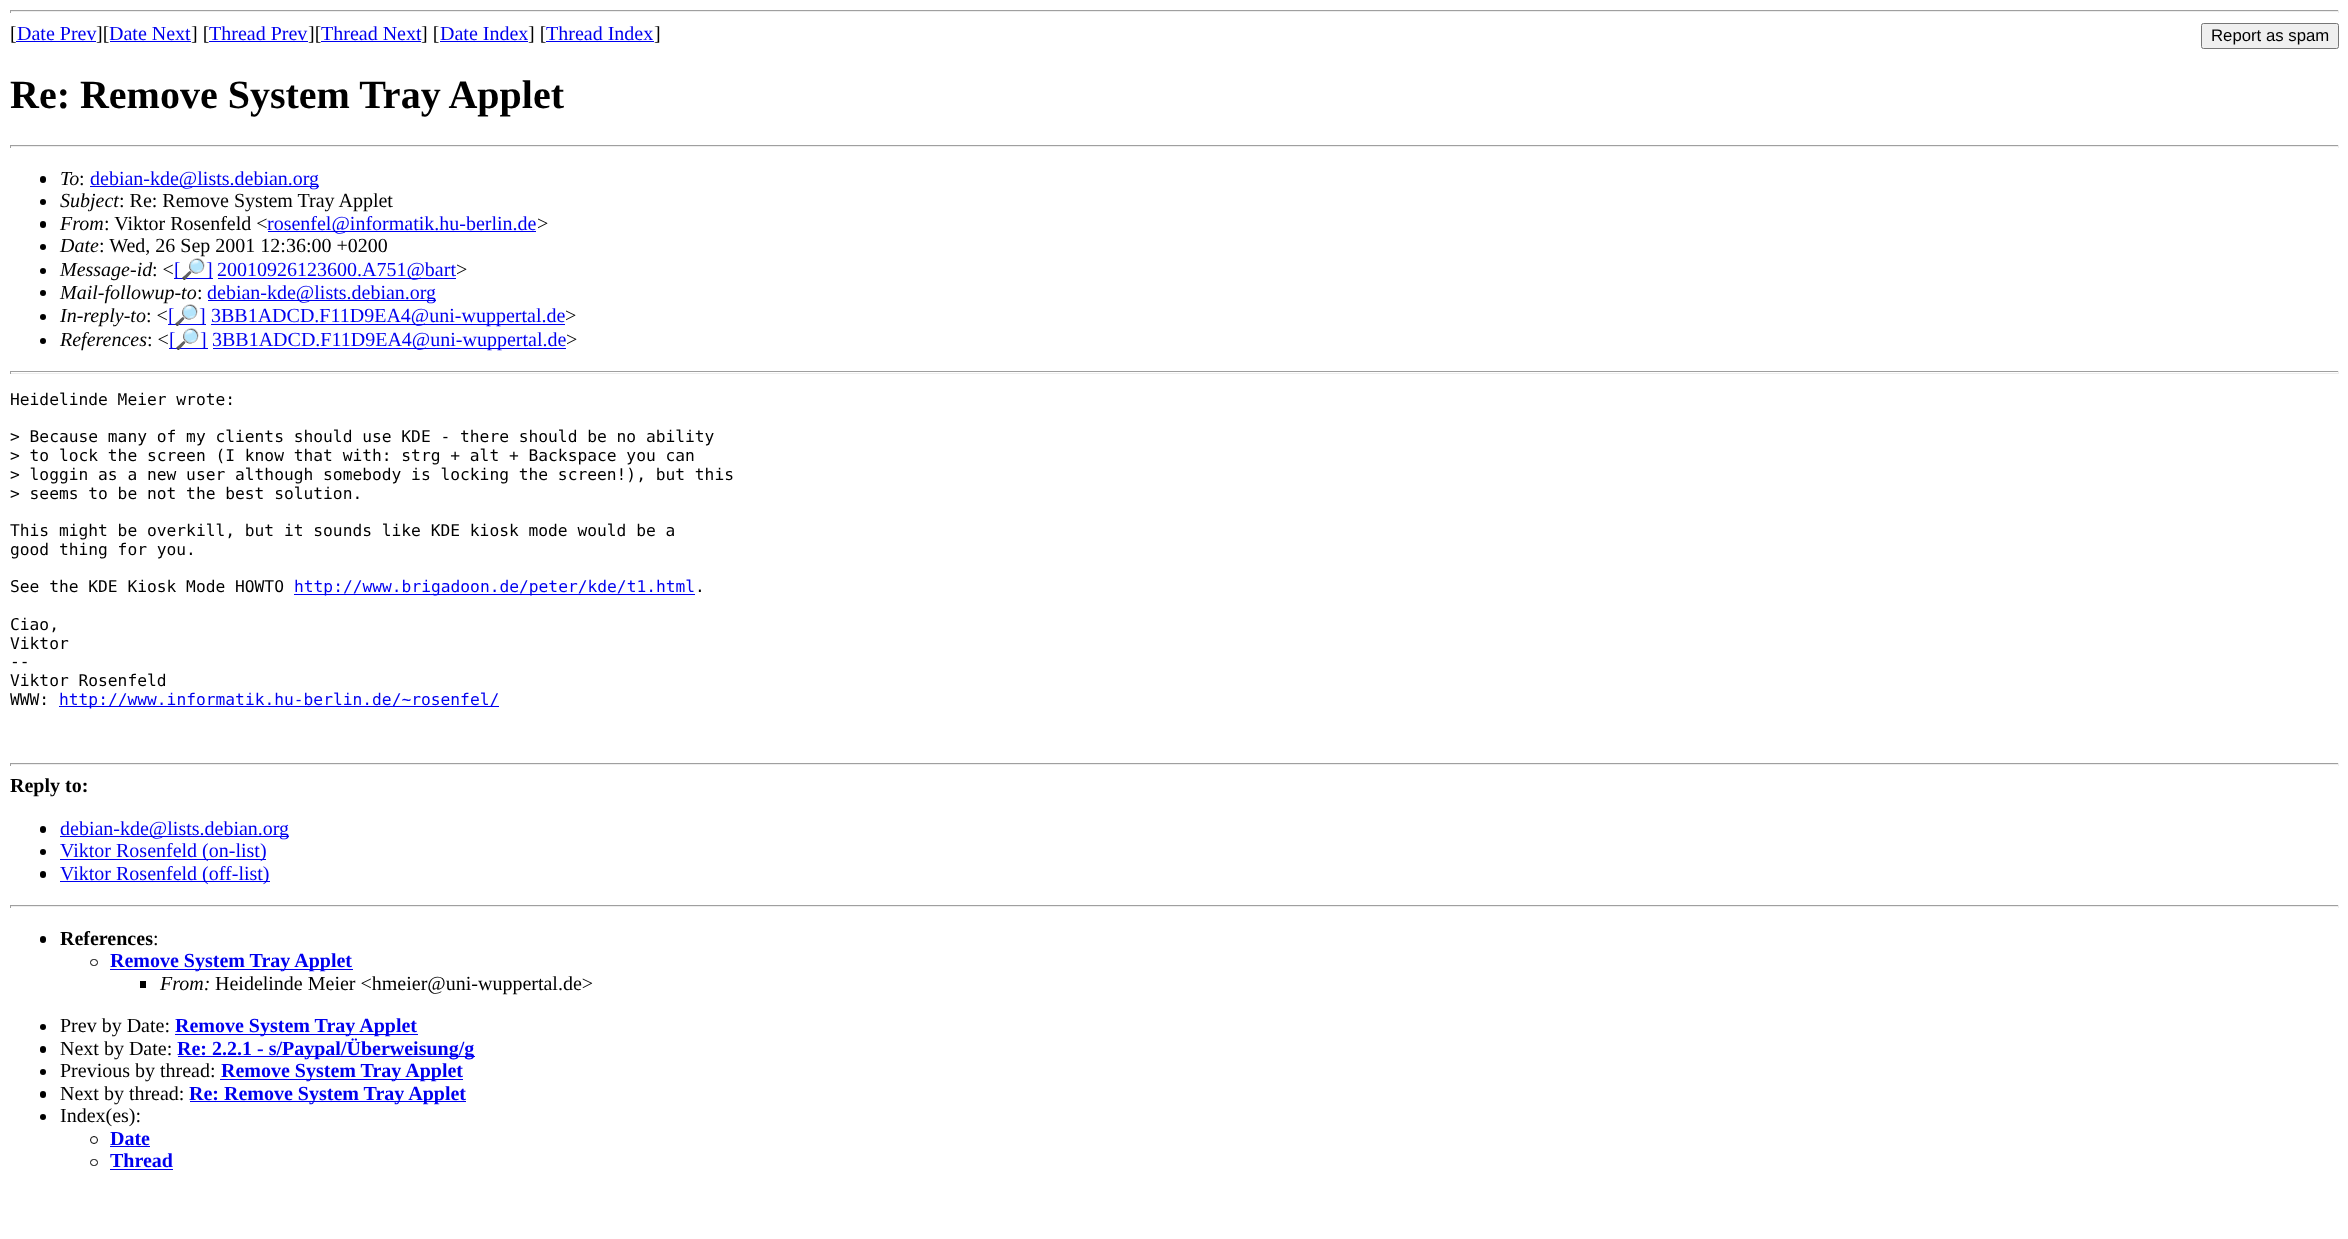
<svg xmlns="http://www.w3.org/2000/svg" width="2348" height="1239">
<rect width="100%" height="100%" fill="#fff"/>
<rect x="10" y="10" width="2329" height="1" fill="#9f9f9f"/>
<rect x="2338" y="10" width="1" height="3" fill="#eee"/>
<rect x="10" y="11" width="2329" height="1" fill="#eee"/>
<rect x="10" y="10" width="1" height="3" fill="#9f9f9f"/>
<text x="10" y="40" style="font-family:Liberation Serif;font-size:20px;fill:#000">[</text>
<text x="17" y="40" style="font-family:Liberation Serif;font-size:20px;fill:#00e">Date Prev</text>
<rect x="16" y="41" width="80" height="1" fill="#00e"/>
<text x="96" y="40" style="font-family:Liberation Serif;font-size:20px;fill:#000">][</text>
<text x="109" y="40" style="font-family:Liberation Serif;font-size:20px;fill:#00e">Date Next</text>
<rect x="110" y="41" width="81" height="1" fill="#00e"/>
<text x="191" y="40" style="font-family:Liberation Serif;font-size:20px;fill:#000">] [</text>
<text x="209" y="40" style="font-family:Liberation Serif;font-size:20px;fill:#00e">Thread Prev</text>
<rect x="209" y="41" width="99" height="1" fill="#00e"/>
<text x="308" y="40" style="font-family:Liberation Serif;font-size:20px;fill:#000">][</text>
<text x="321" y="40" style="font-family:Liberation Serif;font-size:20px;fill:#00e">Thread Next</text>
<rect x="321" y="41" width="100" height="1" fill="#00e"/>
<text x="421" y="40" style="font-family:Liberation Serif;font-size:20px;fill:#000">] [</text>
<text x="440" y="40" style="font-family:Liberation Serif;font-size:20px;fill:#00e">Date Index</text>
<rect x="440" y="41" width="88" height="1" fill="#00e"/>
<text x="528" y="40" style="font-family:Liberation Serif;font-size:20px;fill:#000">] [</text>
<text x="546" y="40" style="font-family:Liberation Serif;font-size:20px;fill:#00e">Thread Index</text>
<rect x="546" y="41" width="108" height="1" fill="#00e"/>
<text x="654" y="40" style="font-family:Liberation Serif;font-size:20px;fill:#000">]</text>
<rect x="2201.5" y="23.5" width="137" height="25" rx="2" fill="#efefef" stroke="#767676"/>
<text x="2211" y="41" style="font-family:Liberation Sans;font-size:16.75px;fill:#000">Report as spam</text>
<text x="10" y="108" style="font-family:Liberation Serif;font-size:40px;font-weight:bold;fill:#000">Re: Remove System Tray Applet</text>
<rect x="10" y="145" width="2329" height="1" fill="#9f9f9f"/>
<rect x="2338" y="145" width="1" height="3" fill="#eee"/>
<rect x="10" y="146" width="2329" height="1" fill="#eee"/>
<rect x="10" y="145" width="1" height="3" fill="#9f9f9f"/>
<rect x="40" y="176" width="6" height="7" rx="3" fill="#000"/>
<text x="60" y="185" style="font-family:Liberation Serif;font-size:20px;font-style:italic;fill:#000">To</text>
<text x="79" y="185" style="font-family:Liberation Serif;font-size:20px;fill:#000">:</text>
<rect x="90" y="186" width="229" height="1" fill="#00e"/>
<text x="90" y="185" style="font-family:Liberation Serif;font-size:20px;fill:#00e">debian-kde@lists.debian.org</text>
<circle cx="43" cy="202" r="3" fill="#000"/>
<text x="60" y="207" style="font-family:Liberation Serif;font-size:20px;font-style:italic;fill:#000">Subject</text>
<text x="119" y="207" style="font-family:Liberation Serif;font-size:20px;fill:#000">: Re: Remove System Tray Applet</text>
<rect x="40" y="221" width="6" height="7" rx="3" fill="#000"/>
<text x="60" y="230" style="font-family:Liberation Serif;font-size:20px;font-style:italic;fill:#000">From</text>
<text x="104" y="230" style="font-family:Liberation Serif;font-size:20px;fill:#000">: Viktor Rosenfeld &lt;</text>
<rect x="268" y="231" width="268" height="1" fill="#00e"/>
<text x="267" y="230" style="font-family:Liberation Serif;font-size:20px;fill:#00e">rosenfel@informatik.hu-berlin.de</text>
<text x="537" y="230" style="font-family:Liberation Serif;font-size:20px;fill:#000">&gt;</text>
<circle cx="43" cy="247" r="3" fill="#000"/>
<text x="60" y="252" style="font-family:Liberation Serif;font-size:20px;font-style:italic;fill:#000">Date</text>
<text x="99" y="252" style="font-family:Liberation Serif;font-size:20px;fill:#000">: Wed, 26 Sep 2001 12:36:00 +0200</text>
<circle cx="43" cy="271" r="3" fill="#000"/>
<text x="60" y="276" style="font-family:Liberation Serif;font-size:20px;font-style:italic;fill:#000">Message-id</text>
<text x="152" y="276" style="font-family:Liberation Serif;font-size:20px;fill:#000">: &lt;</text>
<rect x="174" y="278" width="39" height="1" fill="#00e"/>
<text x="174" y="276" style="font-family:Liberation Serif;font-size:20px;fill:#00e">[</text>
<text x="181" y="276" style="font-family:Noto Color Emoji;font-size:20px;fill:#00e">🔎</text>
<text x="206" y="276" style="font-family:Liberation Serif;font-size:20px;fill:#00e">]</text>
<rect x="218" y="278" width="238" height="1" fill="#00e"/>
<text x="217" y="276" style="font-family:Liberation Serif;font-size:20px;fill:#00e">20010926123600.A751@bart</text>
<text x="456" y="276" style="font-family:Liberation Serif;font-size:20px;fill:#000">&gt;</text>
<circle cx="43" cy="293" r="3" fill="#000"/>
<text x="60" y="299" style="font-family:Liberation Serif;font-size:20px;font-style:italic;fill:#000">Mail-followup-to</text>
<text x="197" y="299" style="font-family:Liberation Serif;font-size:20px;fill:#000">:</text>
<rect x="208" y="300" width="228" height="1" fill="#00e"/>
<text x="207" y="299" style="font-family:Liberation Serif;font-size:20px;fill:#00e">debian-kde@lists.debian.org</text>
<circle cx="43" cy="317" r="3" fill="#000"/>
<text x="60" y="322" style="font-family:Liberation Serif;font-size:20px;font-style:italic;fill:#000">In-reply-to</text>
<text x="146" y="322" style="font-family:Liberation Serif;font-size:20px;fill:#000">: &lt;</text>
<rect x="168" y="324" width="38" height="1" fill="#00e"/>
<text x="168" y="322" style="font-family:Liberation Serif;font-size:20px;fill:#00e">[</text>
<text x="174" y="322" style="font-family:Noto Color Emoji;font-size:20px;fill:#00e">🔎</text>
<text x="199" y="322" style="font-family:Liberation Serif;font-size:20px;fill:#00e">]</text>
<rect x="211" y="324" width="354" height="1" fill="#00e"/>
<text x="211" y="322" style="font-family:Liberation Serif;font-size:20px;fill:#00e">3BB1ADCD.F11D9EA4@uni-wuppertal.de</text>
<text x="565" y="322" style="font-family:Liberation Serif;font-size:20px;fill:#000">&gt;</text>
<circle cx="43" cy="341" r="3" fill="#000"/>
<text x="60" y="346" style="font-family:Liberation Serif;font-size:20px;font-style:italic;fill:#000">References</text>
<text x="147" y="346" style="font-family:Liberation Serif;font-size:20px;fill:#000">: &lt;</text>
<rect x="169" y="348" width="39" height="1" fill="#00e"/>
<text x="169" y="346" style="font-family:Liberation Serif;font-size:20px;fill:#00e">[</text>
<text x="175" y="346" style="font-family:Noto Color Emoji;font-size:20px;fill:#00e">🔎</text>
<text x="200" y="346" style="font-family:Liberation Serif;font-size:20px;fill:#00e">]</text>
<rect x="213" y="348" width="353" height="1" fill="#00e"/>
<text x="212" y="346" style="font-family:Liberation Serif;font-size:20px;fill:#00e">3BB1ADCD.F11D9EA4@uni-wuppertal.de</text>
<text x="566" y="346" style="font-family:Liberation Serif;font-size:20px;fill:#000">&gt;</text>
<rect x="10" y="371" width="2329" height="1" fill="#9f9f9f"/>
<rect x="2338" y="371" width="1" height="3" fill="#eee"/>
<rect x="10" y="373" width="2329" height="1" fill="#eee"/>
<rect x="10" y="371" width="1" height="3" fill="#9f9f9f"/>
<text x="10" y="405" style="font-family:DejaVu Sans Mono;font-size:16.25px;fill:#000">Heidelinde Meier wrote:</text>
<text x="10" y="442" style="font-family:DejaVu Sans Mono;font-size:16.25px;fill:#000">&gt; Because many of my clients should use KDE - there should be no ability</text>
<text x="10" y="461" style="font-family:DejaVu Sans Mono;font-size:16.25px;fill:#000">&gt; to lock the screen (I know that with: strg + alt + Backspace you can</text>
<text x="10" y="480" style="font-family:DejaVu Sans Mono;font-size:16.25px;fill:#000">&gt; loggin as a new user although somebody is locking the screen!), but this</text>
<text x="10" y="499" style="font-family:DejaVu Sans Mono;font-size:16.25px;fill:#000">&gt; seems to be not the best solution.</text>
<text x="10" y="536" style="font-family:DejaVu Sans Mono;font-size:16.25px;fill:#000">This might be overkill, but it sounds like KDE kiosk mode would be a</text>
<text x="10" y="555" style="font-family:DejaVu Sans Mono;font-size:16.25px;fill:#000">good thing for you.</text>
<text x="10" y="592" style="font-family:DejaVu Sans Mono;font-size:16.25px;fill:#000">See the KDE Kiosk Mode HOWTO</text>
<rect x="294" y="594" width="401" height="1" fill="#00e"/>
<text x="294" y="592" style="font-family:DejaVu Sans Mono;font-size:16.25px;fill:#00e">http://www.brigadoon.de/peter/kde/t1.html</text>
<text x="695" y="592" style="font-family:DejaVu Sans Mono;font-size:16.25px;fill:#000">.</text>
<text x="10" y="630" style="font-family:DejaVu Sans Mono;font-size:16.25px;fill:#000">Ciao,</text>
<text x="10" y="649" style="font-family:DejaVu Sans Mono;font-size:16.25px;fill:#000">Viktor</text>
<text x="10" y="667" style="font-family:DejaVu Sans Mono;font-size:16.25px;fill:#000">--</text>
<text x="10" y="686" style="font-family:DejaVu Sans Mono;font-size:16.25px;fill:#000">Viktor Rosenfeld</text>
<text x="10" y="705" style="font-family:DejaVu Sans Mono;font-size:16.25px;fill:#000">WWW:</text>
<rect x="59" y="706" width="440" height="1" fill="#00e"/>
<text x="59" y="705" style="font-family:DejaVu Sans Mono;font-size:16.25px;fill:#00e">http://www.informatik.hu-berlin.de/~rosenfel/</text>
<rect x="10" y="763" width="2329" height="1" fill="#9f9f9f"/>
<rect x="2338" y="763" width="1" height="3" fill="#eee"/>
<rect x="10" y="764" width="2329" height="1" fill="#eee"/>
<rect x="10" y="763" width="1" height="3" fill="#9f9f9f"/>
<text x="10" y="792" style="font-family:Liberation Serif;font-size:20px;font-weight:bold;fill:#000">Reply to:</text>
<rect x="40" y="826" width="6" height="7" rx="3" fill="#000"/>
<rect x="60" y="836" width="229" height="1" fill="#00e"/>
<text x="60" y="835" style="font-family:Liberation Serif;font-size:20px;fill:#00e">debian-kde@lists.debian.org</text>
<circle cx="43" cy="852" r="3" fill="#000"/>
<rect x="60" y="859" width="206" height="1" fill="#00e"/>
<text x="60" y="857" style="font-family:Liberation Serif;font-size:20px;fill:#00e">Viktor Rosenfeld (on-list)</text>
<rect x="40" y="871" width="6" height="7" rx="3" fill="#000"/>
<rect x="60" y="881" width="210" height="1" fill="#00e"/>
<text x="60" y="880" style="font-family:Liberation Serif;font-size:20px;fill:#00e">Viktor Rosenfeld (off-list)</text>
<rect x="10" y="905" width="2329" height="1" fill="#9f9f9f"/>
<rect x="2338" y="905" width="1" height="3" fill="#eee"/>
<rect x="10" y="906" width="2329" height="1" fill="#eee"/>
<rect x="10" y="905" width="1" height="3" fill="#9f9f9f"/>
<rect x="40" y="936" width="6" height="7" rx="3" fill="#000"/>
<text x="60" y="945" style="font-family:Liberation Serif;font-size:20px;font-weight:bold;fill:#000">References</text>
<text x="153" y="945" style="font-family:Liberation Serif;font-size:20px;fill:#000">:</text>
<rect x="90.5" y="959.5" width="7" height="6" rx="3" fill="none" stroke="#000"/>
<rect x="110" y="969" width="243" height="1" fill="#00e"/>
<text x="110" y="967" style="font-family:Liberation Serif;font-size:20px;font-weight:bold;fill:#00e">Remove System Tray Applet</text>
<rect x="140" y="981" width="6" height="7" fill="#000"/>
<text x="160" y="990" style="font-family:Liberation Serif;font-size:20px;font-style:italic;fill:#000">From:</text>
<text x="215" y="990" style="font-family:Liberation Serif;font-size:20px;fill:#000">Heidelinde Meier &lt;hmeier@uni-wuppertal.de&gt;</text>
<circle cx="43" cy="1027" r="3" fill="#000"/>
<text x="60" y="1032" style="font-family:Liberation Serif;font-size:20px;fill:#000">Prev by Date:</text>
<rect x="175" y="1034" width="243" height="1" fill="#00e"/>
<text x="175" y="1032" style="font-family:Liberation Serif;font-size:20px;font-weight:bold;fill:#00e">Remove System Tray Applet</text>
<rect x="40" y="1046" width="6" height="7" rx="3" fill="#000"/>
<text x="60" y="1055" style="font-family:Liberation Serif;font-size:20px;fill:#000">Next by Date:</text>
<rect x="178" y="1056" width="297" height="1" fill="#00e"/>
<text x="177" y="1055" style="font-family:Liberation Serif;font-size:20px;font-weight:bold;fill:#00e">Re: 2.2.1 - s/Paypal/Überweisung/g</text>
<circle cx="43" cy="1072" r="3" fill="#000"/>
<text x="60" y="1077" style="font-family:Liberation Serif;font-size:20px;fill:#000">Previous by thread:</text>
<rect x="220" y="1079" width="243" height="1" fill="#00e"/>
<text x="221" y="1077" style="font-family:Liberation Serif;font-size:20px;font-weight:bold;fill:#00e">Remove System Tray Applet</text>
<rect x="40" y="1091" width="6" height="7" rx="3" fill="#000"/>
<text x="60" y="1100" style="font-family:Liberation Serif;font-size:20px;fill:#000">Next by thread:</text>
<rect x="190" y="1101" width="276" height="1" fill="#00e"/>
<text x="189" y="1100" style="font-family:Liberation Serif;font-size:20px;font-weight:bold;fill:#00e">Re: Remove System Tray Applet</text>
<circle cx="43" cy="1117" r="3" fill="#000"/>
<text x="60" y="1122" style="font-family:Liberation Serif;font-size:20px;fill:#000">Index(es):</text>
<circle cx="94" cy="1140" r="3.5" fill="none" stroke="#000"/>
<text x="110" y="1145" style="font-family:Liberation Serif;font-size:20px;font-weight:bold;fill:#00e">Date</text>
<rect x="110" y="1146" width="40" height="1" fill="#00e"/>
<rect x="90.5" y="1159.5" width="7" height="6" rx="3" fill="none" stroke="#000"/>
<text x="110" y="1167" style="font-family:Liberation Serif;font-size:20px;font-weight:bold;fill:#00e">Thread</text>
<rect x="110" y="1169" width="63" height="1" fill="#00e"/>
</svg>
